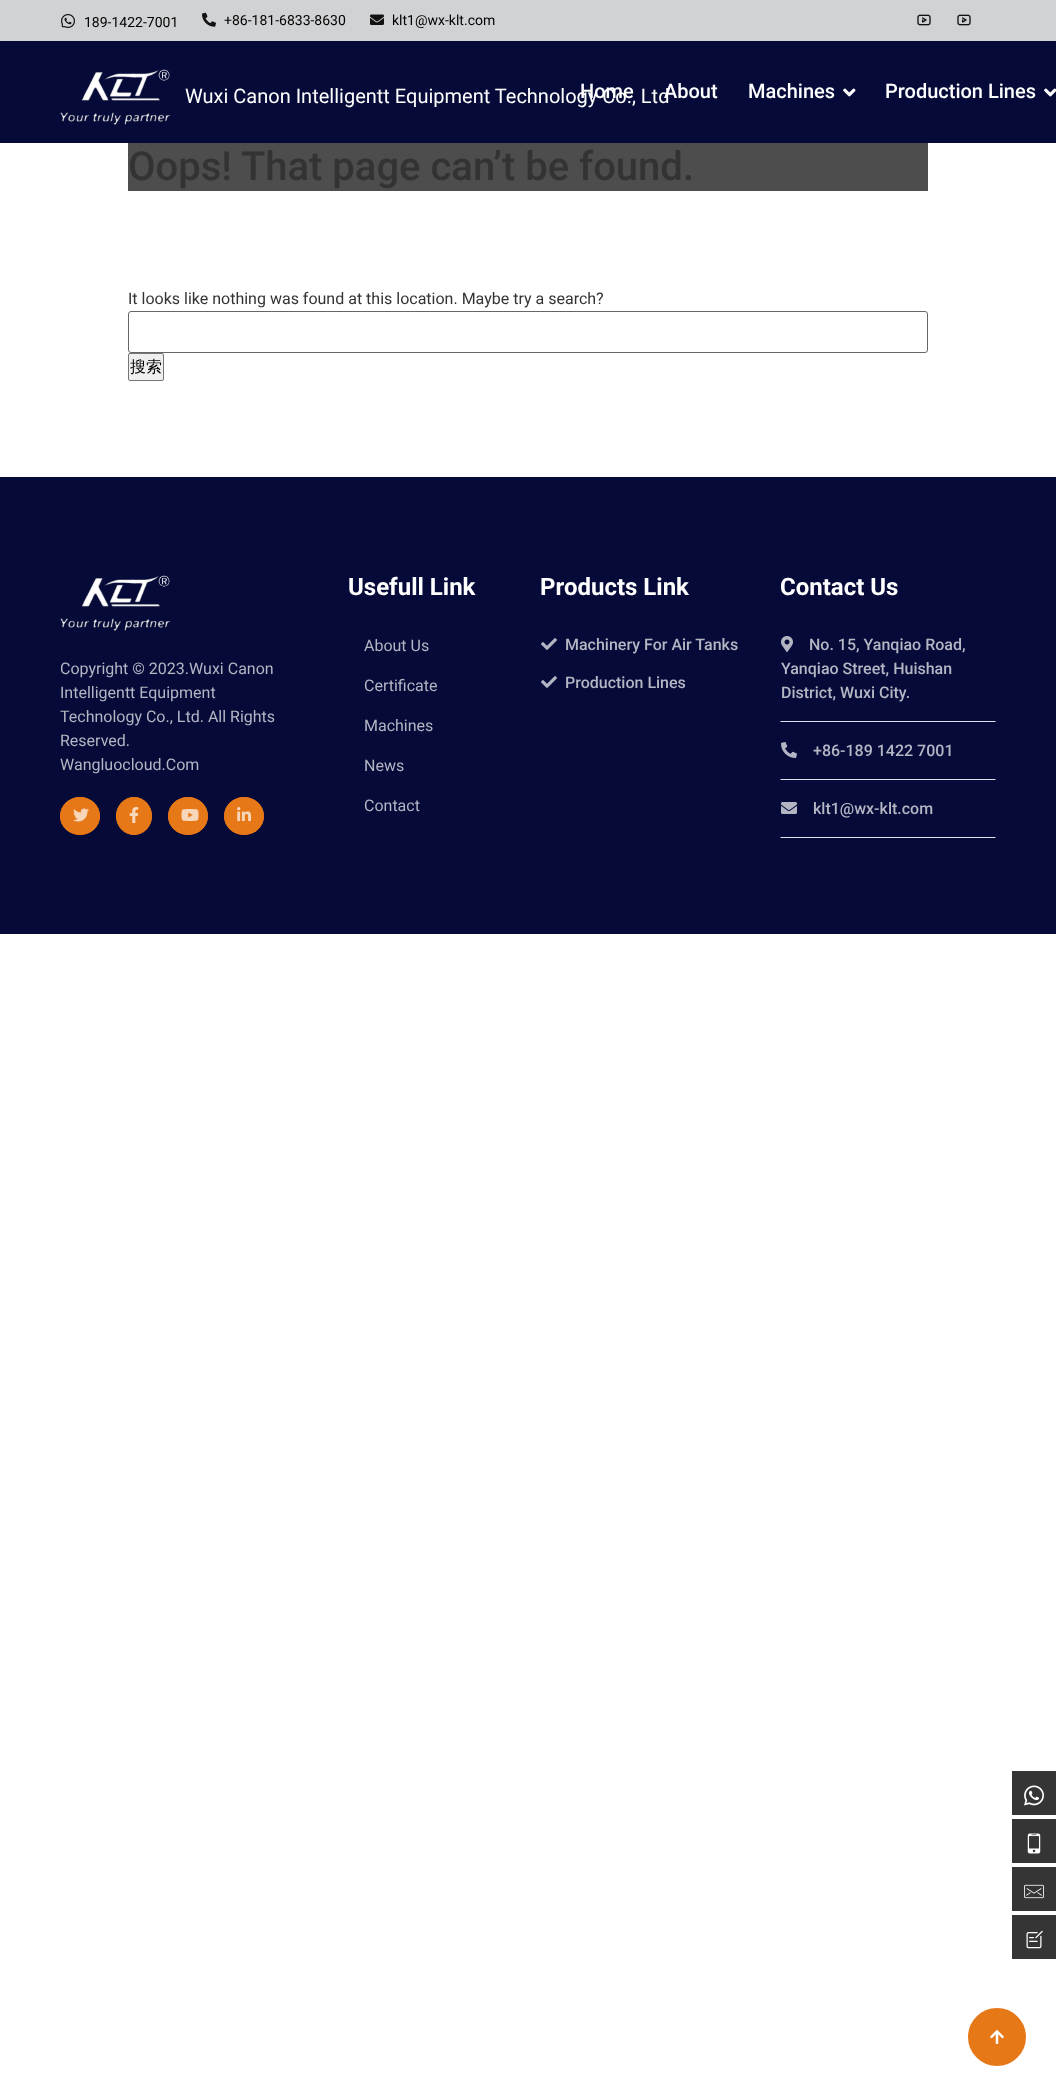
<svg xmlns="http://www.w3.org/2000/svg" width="1056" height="2096">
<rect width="100%" height="100%" fill="#fff"/>
<rect width="1056" height="41" fill="#d1d2d4"/>
<image x="61" y="14" width="14" height="14" href="media/1.png"/>
<text x="84" y="27" style="font-family:Roboto;font-size:14px;fill:#000">189-1422-7001</text>
<image x="202" y="12" width="14" height="15" href="media/2.png"/>
<text x="224" y="25" style="font-family:Roboto;font-size:14px;fill:#000">+86-181-6833-8630</text>
<image x="370" y="14" width="14" height="11" href="media/3.png"/>
<text x="392" y="25" style="font-family:Roboto;font-size:14px;fill:#000">klt1@wx-klt.com</text>
<image x="917" y="14" width="14" height="12" href="media/4.png"/>
<image x="957" y="14" width="14" height="12" href="media/4.png"/>
<rect y="41" width="1056" height="102" fill="#050a38"/>
<image x="60" y="69" width="112" height="56" href="media/5.png"/>
<text x="185" y="103" style="font-family:Roboto;font-size:20px;fill:#fff">Wuxi Canon Intelligentt Equipment Technology Co., Ltd</text>
<text x="580" y="98" style="font-family:Roboto;font-size:20px;font-weight:500;fill:#fff">Home</text>
<text x="664" y="98" style="font-family:Roboto;font-size:20px;font-weight:500;fill:#fff">About</text>
<text x="748" y="98" style="font-family:Roboto;font-size:20px;font-weight:500;fill:#fff">Machines</text>
<image x="843" y="88" width="13" height="9" href="media/6.png"/>
<text x="885" y="98" style="font-family:Roboto;font-size:20px;font-weight:500;fill:#fff">Production Lines</text>
<image x="1044" y="88" width="12" height="9" href="media/7.png"/>
<rect x="128" y="143" width="800" height="48" fill="#4d4d4d"/>
<text x="128" y="180" style="font-family:Roboto;font-size:40px;font-weight:500;fill:#333">Oops! That page can’t be found.</text>
<text x="128" y="304" style="font-family:Roboto;font-size:16px;fill:#333">It looks like nothing was found at this location. Maybe try a search?</text>
<rect x="128.5" y="311.5" width="799" height="41" rx="2.5" fill="none" stroke="#666"/>
<rect x="128.5" y="353.5" width="35" height="27" rx="1.5" fill="#efefef" stroke="#767676"/>
<text x="130" y="372" style="font-family:WenQuanYi Zen Hei;font-size:16px;font-weight:500;fill:#000">搜索</text>
<rect y="477" width="1056" height="457" fill="#050a38"/>
<image x="60" y="575" width="112" height="56" href="media/8.png"/>
<text x="60" y="674" style="font-family:Roboto;font-size:16px;fill:#b4b6c3">Copyright © 2023.Wuxi Canon</text>
<text x="60" y="698" style="font-family:Roboto;font-size:16px;fill:#b4b6c3">Intelligentt Equipment</text>
<text x="60" y="722" style="font-family:Roboto;font-size:16px;fill:#b4b6c3">Technology Co., Ltd. All Rights</text>
<text x="60" y="746" style="font-family:Roboto;font-size:16px;fill:#b4b6c3">Reserved.</text>
<text x="60" y="770" style="font-family:Roboto;font-size:16px;fill:#b4b6c3">Wangluocloud.Com</text>
<ellipse cx="80" cy="816" rx="20" ry="19" fill="#e67817"/>
<path d="M80 797.5c11 0 19.5 8.5 19.5 18.5c0 10-8.5 18.5-19.5 18.5c-11 0-19.5-8.5-19.5-18.5c0-10 8.5-18.5 19.5-18.5z" fill="none" stroke="#e67817"/>
<image x="73" y="808" width="16" height="14" href="media/9.png"/>
<ellipse cx="134" cy="816" rx="18" ry="19" fill="#e67817"/>
<path d="M134 797.5c9.5 0 17.5 8.5 17.5 18.5c0 10-8 18.5-17.5 18.5c-9.5 0-17.5-8.5-17.5-18.5c0-10 8-18.5 17.5-18.5z" fill="none" stroke="#e67817"/>
<image x="129" y="807" width="10" height="16" href="media/10.png"/>
<ellipse cx="188" cy="816" rx="20" ry="19" fill="#e67817"/>
<path d="M188 797.5c11 0 19.5 8.5 19.5 18.5c0 10-8.5 18.5-19.5 18.5c-11 0-19.5-8.5-19.5-18.5c0-10 8.5-18.5 19.5-18.5z" fill="none" stroke="#e67817"/>
<image x="181" y="809" width="18" height="12" href="media/11.png"/>
<ellipse cx="244" cy="816" rx="20" ry="19" fill="#e67817"/>
<path d="M244 797.5c11 0 19.5 8.5 19.5 18.5c0 10-8.5 18.5-19.5 18.5c-11 0-19.5-8.5-19.5-18.5c0-10 8.5-18.5 19.5-18.5z" fill="none" stroke="#e67817"/>
<image x="237" y="807" width="14" height="14" href="media/12.png"/>
<text x="348" y="595" style="font-family:Roboto;font-size:24px;font-weight:bold;fill:#fff">Usefull Link</text>
<text x="364" y="651" style="font-family:Roboto;font-size:16px;fill:#b4b6c3">About Us</text>
<text x="364" y="691" style="font-family:Roboto;font-size:16px;fill:#b4b6c3">Certificate</text>
<text x="364" y="731" style="font-family:Roboto;font-size:16px;fill:#b4b6c3">Machines</text>
<text x="364" y="771" style="font-family:Roboto;font-size:16px;fill:#b4b6c3">News</text>
<text x="364" y="811" style="font-family:Roboto;font-size:16px;fill:#b4b6c3">Contact</text>
<text x="540" y="595" style="font-family:Roboto;font-size:24px;font-weight:bold;fill:#fff">Products Link</text>
<image x="541" y="638" width="16" height="12" href="media/13.png"/>
<text x="565" y="650" style="font-family:Roboto;font-size:16px;font-weight:500;fill:#b4b6c3">Machinery For Air Tanks</text>
<image x="541" y="676" width="16" height="12" href="media/13.png"/>
<text x="565" y="688" style="font-family:Roboto;font-size:16px;font-weight:500;fill:#b4b6c3">Production Lines</text>
<text x="780" y="595" style="font-family:Roboto;font-size:24px;font-weight:bold;fill:#fff">Contact Us</text>
<path d="M996 722h-216l1-1h214z" fill="#dee2e6"/>
<image x="781" y="636" width="12" height="16" href="media/14.png"/>
<text x="809" y="650" style="font-family:Roboto;font-size:16px;font-weight:500;fill:#b4b6c3">No. 15, Yanqiao Road,</text>
<text x="781" y="674" style="font-family:Roboto;font-size:16px;font-weight:500;fill:#b4b6c3">Yanqiao Street, Huishan</text>
<text x="781" y="698" style="font-family:Roboto;font-size:16px;font-weight:500;fill:#b4b6c3">District, Wuxi City.</text>
<path d="M996 780h-216l1-1h214z" fill="#dee2e6"/>
<image x="781" y="742" width="16" height="16" href="media/15.png"/>
<text x="813" y="756" style="font-family:Roboto;font-size:16px;font-weight:500;fill:#b4b6c3">+86-189 1422 7001</text>
<path d="M996 838h-216l1-1h214z" fill="#dee2e6"/>
<image x="781" y="802" width="16" height="12" href="media/16.png"/>
<text x="813" y="814" style="font-family:Roboto;font-size:16px;font-weight:500;fill:#b4b6c3">klt1@wx-klt.com</text>
<rect x="1012" y="1771" width="44" height="44" fill="#353535"/>
<image x="1024" y="1785" width="20" height="21" href="media/17.png"/>
<rect x="1012" y="1819" width="44" height="44" fill="#353535"/>
<image x="1027" y="1833" width="14" height="21" href="media/18.png"/>
<rect x="1012" y="1867" width="44" height="44" fill="#353535"/>
<image x="1024" y="1884" width="20" height="15" href="media/19.png"/>
<rect x="1012" y="1915" width="44" height="44" fill="#353535"/>
<image x="1026" y="1930" width="17" height="19" href="media/20.png"/>
<circle cx="997" cy="2037" r="27.5" fill="#e67817" stroke="#e67817" stroke-width="3"/>
<image x="990" y="2030" width="14" height="14" href="media/21.png"/>
</svg>
